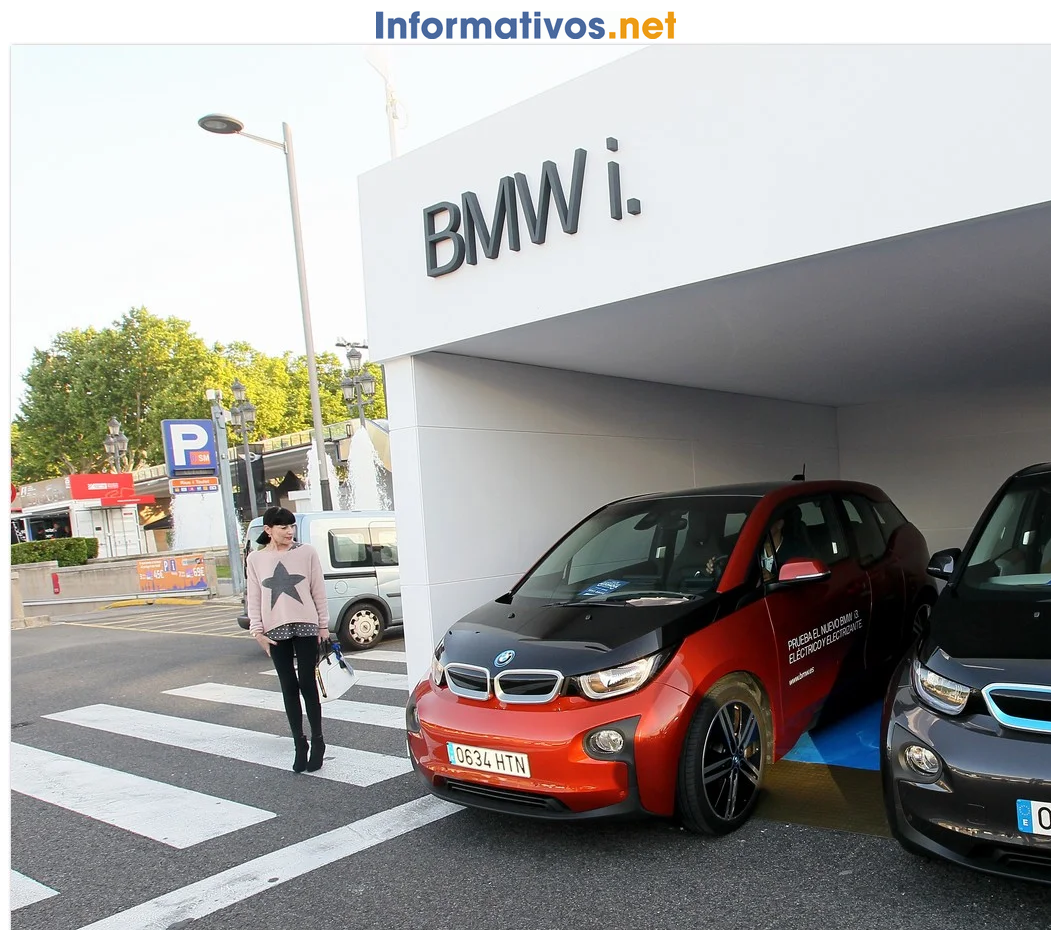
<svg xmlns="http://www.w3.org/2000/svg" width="1051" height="930">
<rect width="100%" height="100%" fill="#fff"/>
<image x="376" y="11" width="300" height="28" href="media/1.png"/>
<image x="8" y="42" width="1043" height="888" href="media/2.png"/>
</svg>
